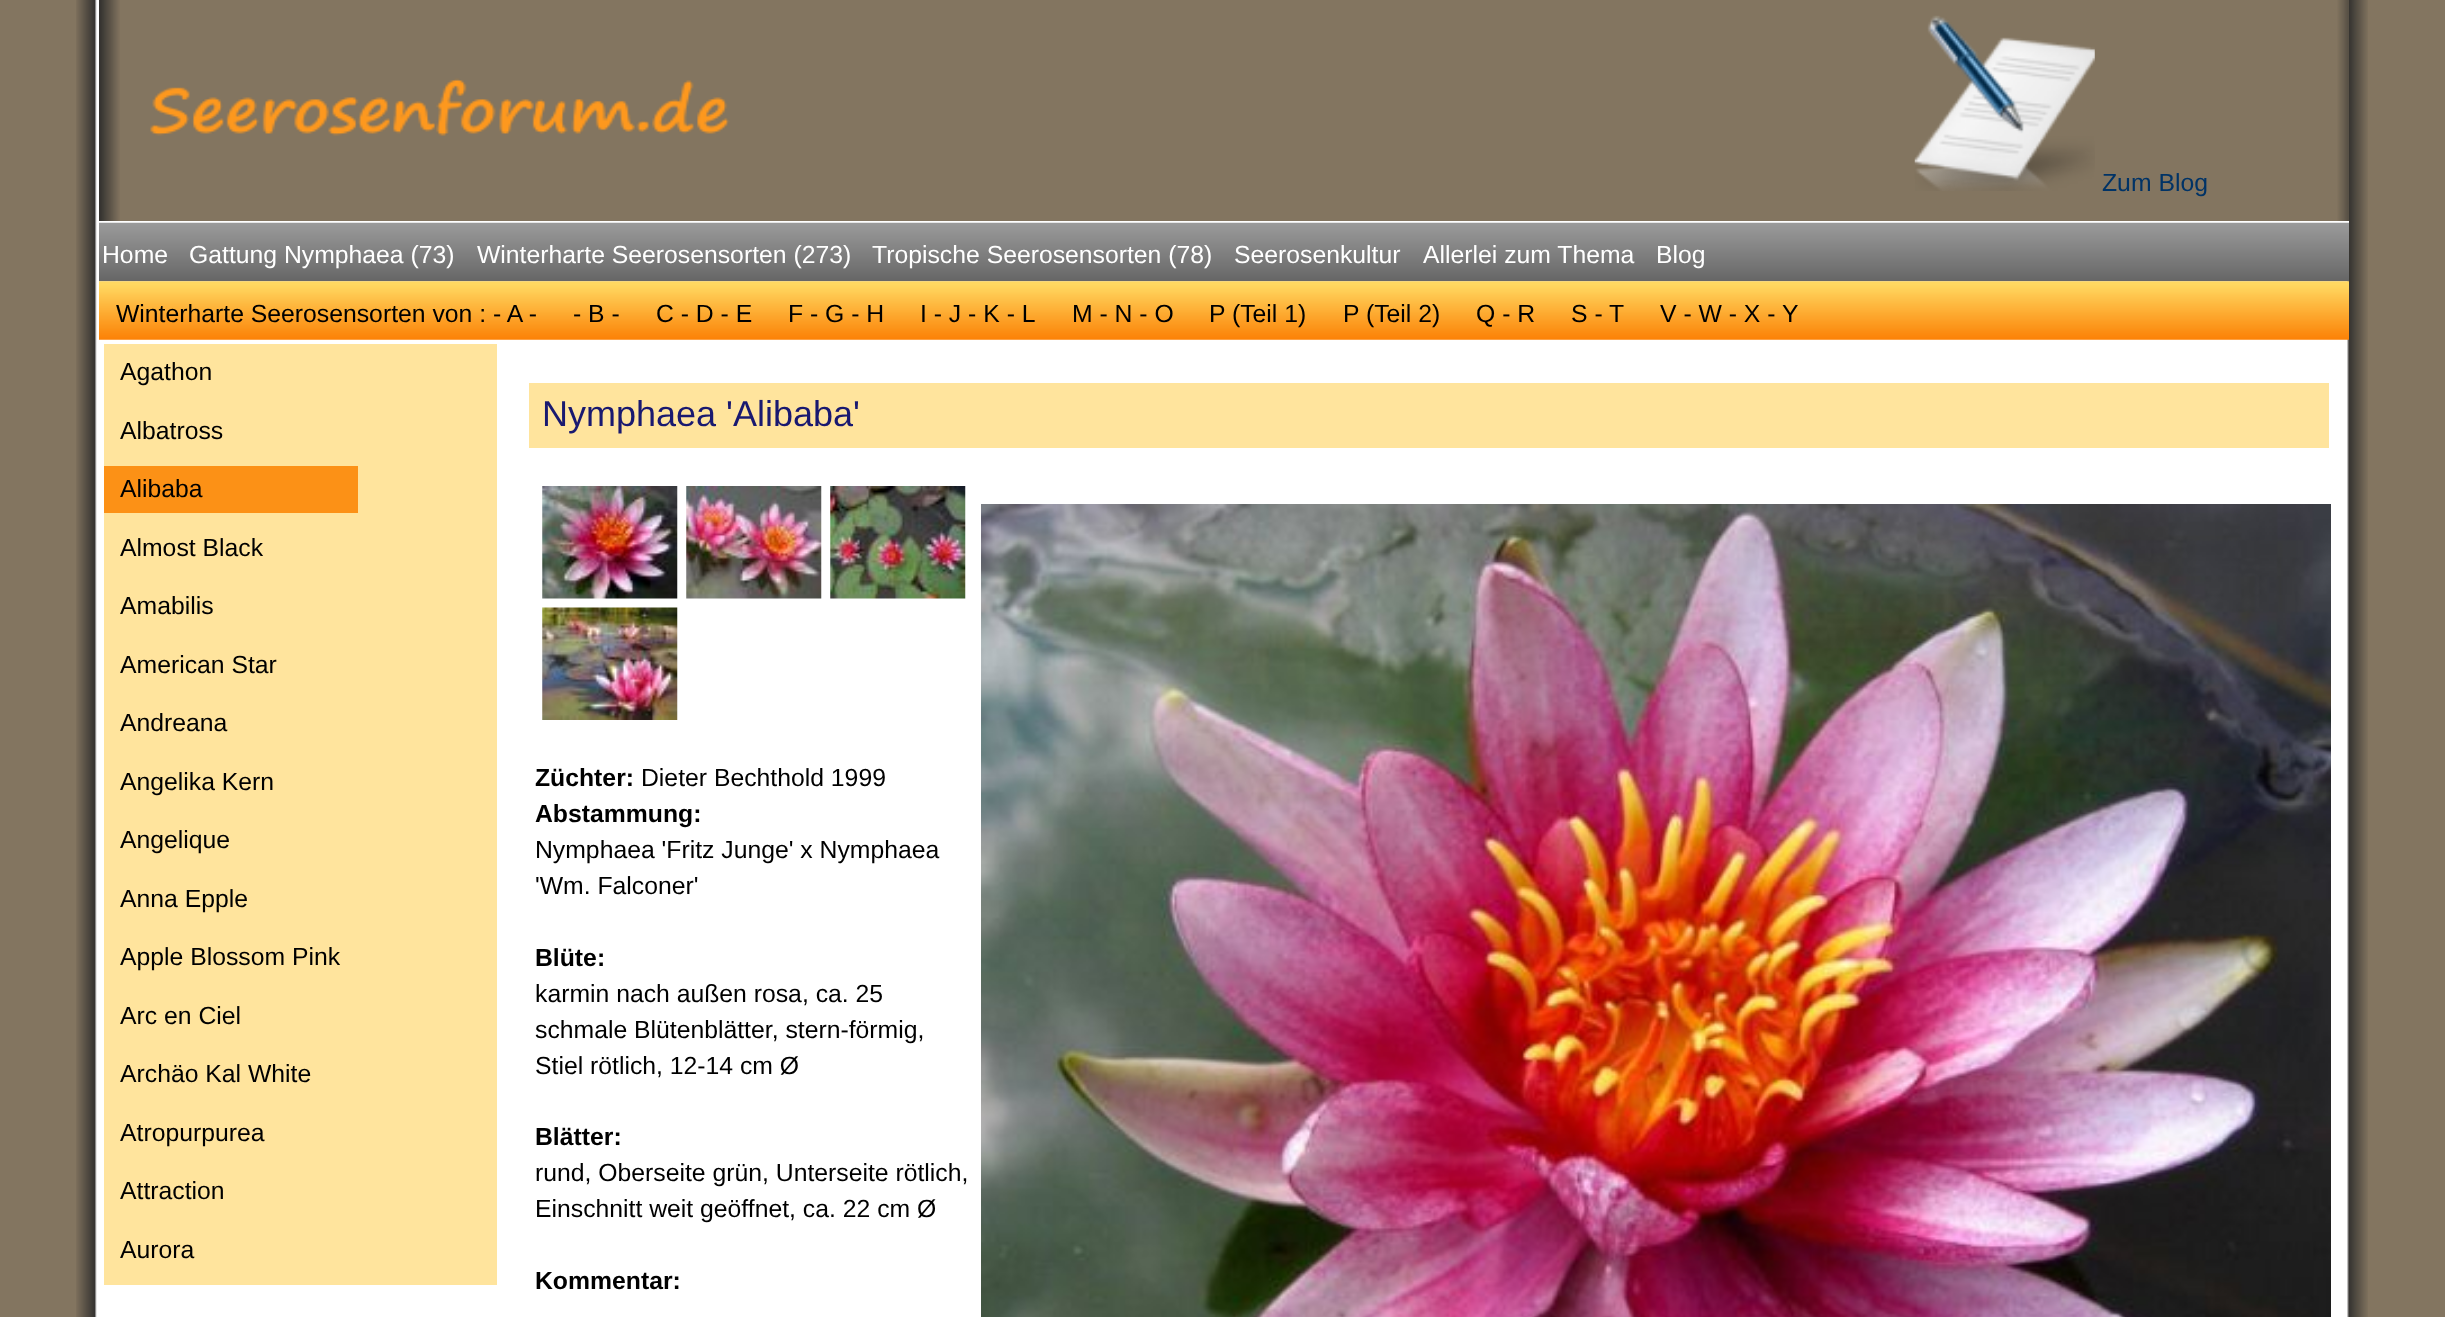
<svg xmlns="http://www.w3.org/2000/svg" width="2445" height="1317">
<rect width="100%" height="100%" fill="#837560"/>
<image x="76" y="0" width="2292" height="1317" href="media/1.png"/>
<image x="99" y="0" width="2250" height="221" href="media/2.png"/>
<rect x="2347" y="221" width="2" height="2" fill="#fff"/>
<image x="150" y="78" width="580" height="58" href="media/3.png"/>
<image x="1914" y="15" width="181" height="176" href="media/4.png"/>
<text x="2102" y="191" style="font-family:Liberation Sans;font-size:24.75px;fill:#036">Zum Blog</text>
<image x="99" y="222" width="2250" height="60" href="media/5.png"/>
<text x="102" y="263" style="font-family:Liberation Sans;font-size:24.75px;fill:#fff">Home</text>
<text x="189" y="263" style="font-family:Liberation Sans;font-size:24.75px;fill:#fff">Gattung Nymphaea (73)</text>
<text x="477" y="263" style="font-family:Liberation Sans;font-size:24.75px;fill:#fff">Winterharte Seerosensorten (273)</text>
<text x="872" y="263" style="font-family:Liberation Sans;font-size:24.75px;fill:#fff">Tropische Seerosensorten (78)</text>
<text x="1234" y="263" style="font-family:Liberation Sans;font-size:24.75px;fill:#fff">Seerosenkultur</text>
<text x="1423" y="263" style="font-family:Liberation Sans;font-size:24.75px;fill:#fff">Allerlei zum Thema</text>
<text x="1656" y="263" style="font-family:Liberation Sans;font-size:24.75px;fill:#fff">Blog</text>
<image x="99" y="281" width="2250" height="59" href="media/6.png"/>
<text x="116" y="322" style="font-family:Liberation Sans;font-size:24.75px;fill:#000">Winterharte Seerosensorten von : - A -</text>
<text x="573" y="322" style="font-family:Liberation Sans;font-size:24.75px;fill:#000">- B -</text>
<text x="656" y="322" style="font-family:Liberation Sans;font-size:24.75px;fill:#000">C - D - E</text>
<text x="788" y="322" style="font-family:Liberation Sans;font-size:24.75px;fill:#000">F - G - H</text>
<text x="920" y="322" style="font-family:Liberation Sans;font-size:24.75px;fill:#000">I - J - K - L</text>
<text x="1072" y="322" style="font-family:Liberation Sans;font-size:24.75px;fill:#000">M - N - O</text>
<text x="1209" y="322" style="font-family:Liberation Sans;font-size:24.75px;fill:#000">P (Teil 1)</text>
<text x="1343" y="322" style="font-family:Liberation Sans;font-size:24.75px;fill:#000">P (Teil 2)</text>
<text x="1476" y="322" style="font-family:Liberation Sans;font-size:24.75px;fill:#000">Q - R</text>
<text x="1571" y="322" style="font-family:Liberation Sans;font-size:24.75px;fill:#000">S - T</text>
<text x="1660" y="322" style="font-family:Liberation Sans;font-size:24.75px;fill:#000">V - W - X - Y</text>
<rect x="104" y="344" width="393" height="941" fill="#ffe49d"/>
<text x="120" y="380" style="font-family:Liberation Sans;font-size:24.75px;fill:#000">Agathon</text>
<text x="120" y="439" style="font-family:Liberation Sans;font-size:24.75px;fill:#000">Albatross</text>
<rect x="104" y="466" width="254" height="47" fill="#fc9116"/>
<text x="120" y="497" style="font-family:Liberation Sans;font-size:24.75px;fill:#000">Alibaba</text>
<text x="120" y="556" style="font-family:Liberation Sans;font-size:24.75px;fill:#000">Almost Black</text>
<text x="120" y="614" style="font-family:Liberation Sans;font-size:24.75px;fill:#000">Amabilis</text>
<text x="120" y="673" style="font-family:Liberation Sans;font-size:24.75px;fill:#000">American Star</text>
<text x="120" y="731" style="font-family:Liberation Sans;font-size:24.75px;fill:#000">Andreana</text>
<text x="120" y="790" style="font-family:Liberation Sans;font-size:24.75px;fill:#000">Angelika Kern</text>
<text x="120" y="848" style="font-family:Liberation Sans;font-size:24.75px;fill:#000">Angelique</text>
<text x="120" y="907" style="font-family:Liberation Sans;font-size:24.75px;fill:#000">Anna Epple</text>
<text x="120" y="965" style="font-family:Liberation Sans;font-size:24.75px;fill:#000">Apple Blossom Pink</text>
<text x="120" y="1024" style="font-family:Liberation Sans;font-size:24.75px;fill:#000">Arc en Ciel</text>
<text x="120" y="1082" style="font-family:Liberation Sans;font-size:24.75px;fill:#000">Archäo Kal White</text>
<text x="120" y="1141" style="font-family:Liberation Sans;font-size:24.75px;fill:#000">Atropurpurea</text>
<text x="120" y="1199" style="font-family:Liberation Sans;font-size:24.75px;fill:#000">Attraction</text>
<text x="120" y="1258" style="font-family:Liberation Sans;font-size:24.75px;fill:#000">Aurora</text>
<rect x="529" y="383" width="1800" height="65" fill="#ffe49d"/>
<text x="542" y="426" style="font-family:Liberation Sans;font-size:36px;fill:#191970">Nymphaea 'Alibaba'</text>
<image x="542" y="486" width="136" height="113" href="media/7.png"/>
<image x="686" y="486" width="136" height="113" href="media/8.png"/>
<image x="830" y="486" width="136" height="113" href="media/9.png"/>
<image x="542" y="607" width="136" height="113" href="media/10.png"/>
<text x="535" y="786" style="font-family:Liberation Sans;font-size:24.75px;font-weight:bold;fill:#000">Züchter:</text>
<text x="641" y="786" style="font-family:Liberation Sans;font-size:24.75px;fill:#000">Dieter Bechthold 1999</text>
<text x="535" y="822" style="font-family:Liberation Sans;font-size:24.75px;font-weight:bold;fill:#000">Abstammung:</text>
<text x="535" y="858" style="font-family:Liberation Sans;font-size:24.75px;fill:#000">Nymphaea 'Fritz Junge' x Nymphaea</text>
<text x="535" y="894" style="font-family:Liberation Sans;font-size:24.75px;fill:#000">'Wm. Falconer'</text>
<text x="535" y="966" style="font-family:Liberation Sans;font-size:24.75px;font-weight:bold;fill:#000">Blüte:</text>
<text x="535" y="1002" style="font-family:Liberation Sans;font-size:24.75px;fill:#000">karmin nach außen rosa, ca. 25</text>
<text x="535" y="1038" style="font-family:Liberation Sans;font-size:24.75px;fill:#000">schmale Blütenblätter, stern-förmig,</text>
<text x="535" y="1074" style="font-family:Liberation Sans;font-size:24.75px;fill:#000">Stiel rötlich, 12-14 cm Ø</text>
<text x="535" y="1145" style="font-family:Liberation Sans;font-size:24.75px;font-weight:bold;fill:#000">Blätter:</text>
<text x="535" y="1181" style="font-family:Liberation Sans;font-size:24.75px;fill:#000">rund, Oberseite grün, Unterseite rötlich,</text>
<text x="535" y="1217" style="font-family:Liberation Sans;font-size:24.75px;fill:#000">Einschnitt weit geöffnet, ca. 22 cm Ø</text>
<text x="535" y="1289" style="font-family:Liberation Sans;font-size:24.75px;font-weight:bold;fill:#000">Kommentar:</text>
<image x="981" y="504" width="1350" height="813" href="media/11.png"/>
</svg>
